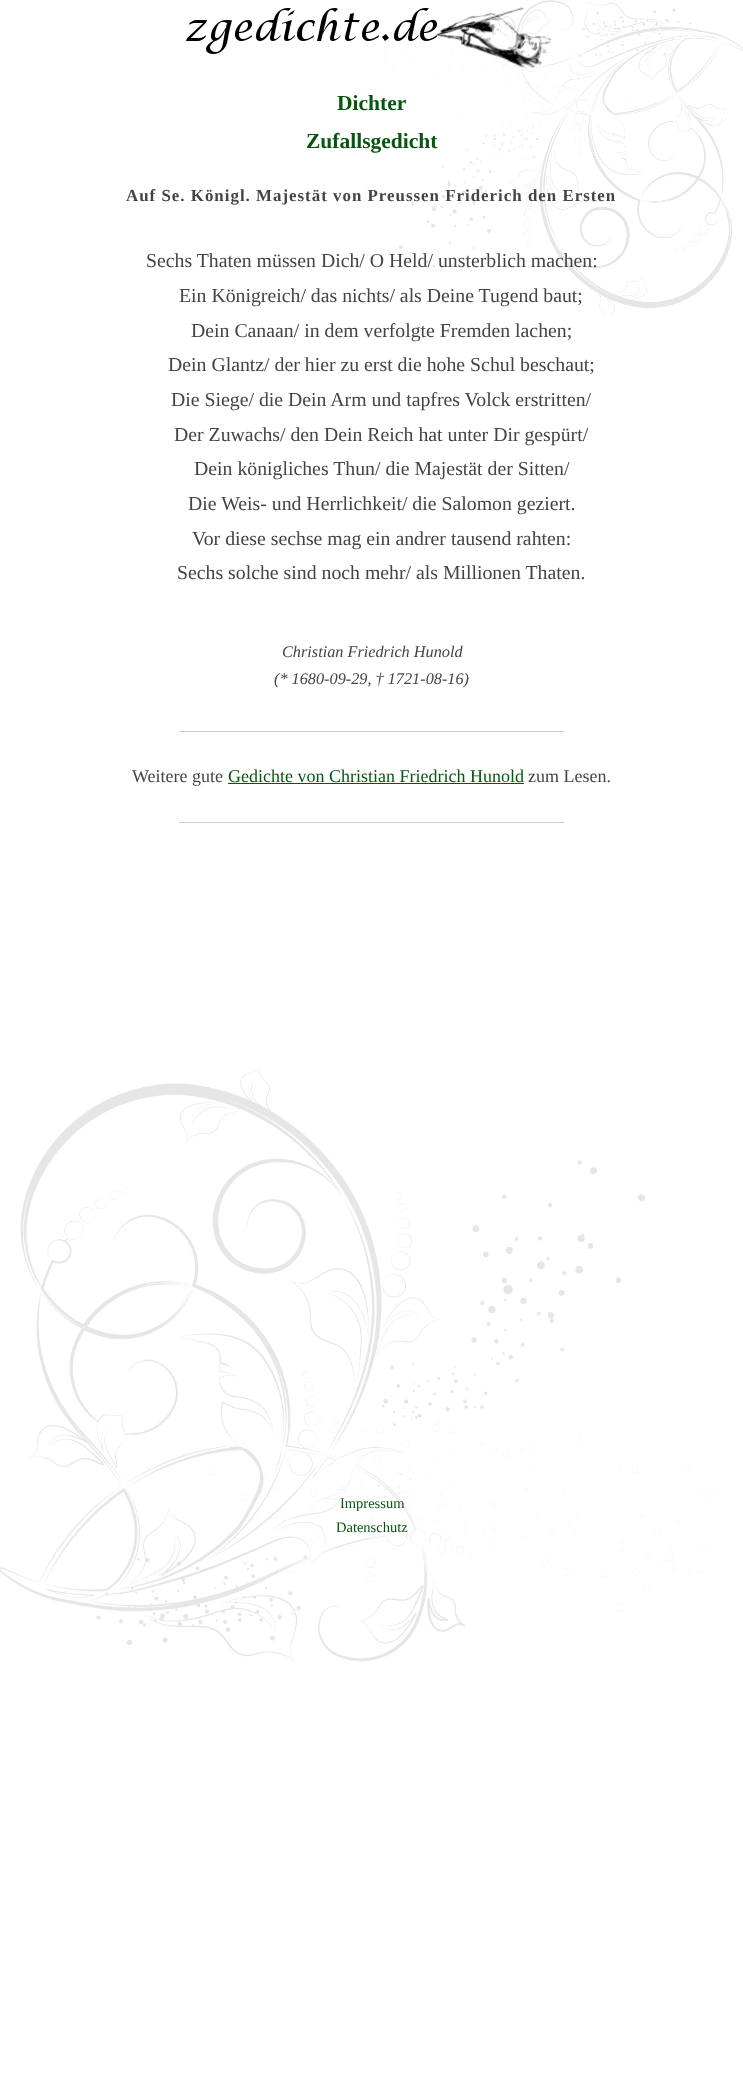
<svg xmlns="http://www.w3.org/2000/svg" width="743" height="2095">
<rect width="100%" height="100%" fill="#fff"/>
<image x="0" y="0" width="743" height="1662" href="media/1.png"/>
<image x="186" y="7" width="366" height="61" href="media/2.png"/>
<text x="337" y="110" style="font-family:Liberation Serif;font-size:21.5px;font-weight:bold;fill:#06560f">Dichter</text>
<text x="306" y="148" style="font-family:Liberation Serif;font-size:21.5px;font-weight:bold;fill:#06560f">Zufallsgedicht</text>
<text x="126" y="201" style="font-family:Liberation Serif;font-size:16.9px;font-weight:bold;letter-spacing:1px;fill:#444">Auf Se. Königl. Majestät von Preussen Friderich den Ersten</text>
<text x="146" y="267" style="font-family:Liberation Serif;font-size:19.8px;fill:#444">Sechs Thaten müssen Dich/ O Held/ unsterblich machen:</text>
<text x="179" y="302" style="font-family:Liberation Serif;font-size:19.8px;fill:#444">Ein Königreich/ das nichts/ als Deine Tugend baut;</text>
<text x="191" y="337" style="font-family:Liberation Serif;font-size:19.8px;fill:#444">Dein Canaan/ in dem verfolgte Fremden lachen;</text>
<text x="168" y="371" style="font-family:Liberation Serif;font-size:19.8px;fill:#444">Dein Glantz/ der hier zu erst die hohe Schul beschaut;</text>
<text x="171" y="406" style="font-family:Liberation Serif;font-size:19.8px;fill:#444">Die Siege/ die Dein Arm und tapfres Volck erstritten/</text>
<text x="174" y="441" style="font-family:Liberation Serif;font-size:19.8px;fill:#444">Der Zuwachs/ den Dein Reich hat unter Dir gespürt/</text>
<text x="194" y="475" style="font-family:Liberation Serif;font-size:19.8px;fill:#444">Dein königliches Thun/ die Majestät der Sitten/</text>
<text x="188" y="510" style="font-family:Liberation Serif;font-size:19.8px;fill:#444">Die Weis- und Herrlichkeit/ die Salomon geziert.</text>
<text x="192" y="545" style="font-family:Liberation Serif;font-size:19.8px;fill:#444">Vor diese sechse mag ein andrer tausend rahten:</text>
<text x="177" y="579" style="font-family:Liberation Serif;font-size:19.8px;fill:#444">Sechs solche sind noch mehr/ als Millionen Thaten.</text>
<text x="282" y="657" style="font-family:Liberation Serif;font-size:16.25px;font-style:italic;fill:#444">Christian Friedrich Hunold</text>
<text x="274" y="684" style="font-family:Liberation Serif;font-size:16.25px;font-style:italic;fill:#444">(* 1680-09-29, † 1721-08-16)</text>
<rect x="179" y="731" width="385" height="1" fill="#ccc"/>
<text x="132" y="782" style="font-family:Liberation Serif;font-size:18px;fill:#444">Weitere gute</text>
<text x="228" y="782" style="font-family:Liberation Serif;font-size:18px;fill:#06560f">Gedichte von Christian Friedrich Hunold</text>
<rect x="228" y="783" width="296" height="1" fill="#06560f"/>
<text x="528" y="782" style="font-family:Liberation Serif;font-size:18px;fill:#444">zum Lesen.</text>
<rect x="179" y="822" width="385" height="1" fill="#ccc"/>
<text x="340" y="1508" style="font-family:Liberation Serif;font-size:14.5px;fill:#06560f">Impressum</text>
<text x="336" y="1532" style="font-family:Liberation Serif;font-size:14.5px;fill:#06560f">Datenschutz</text>
</svg>
